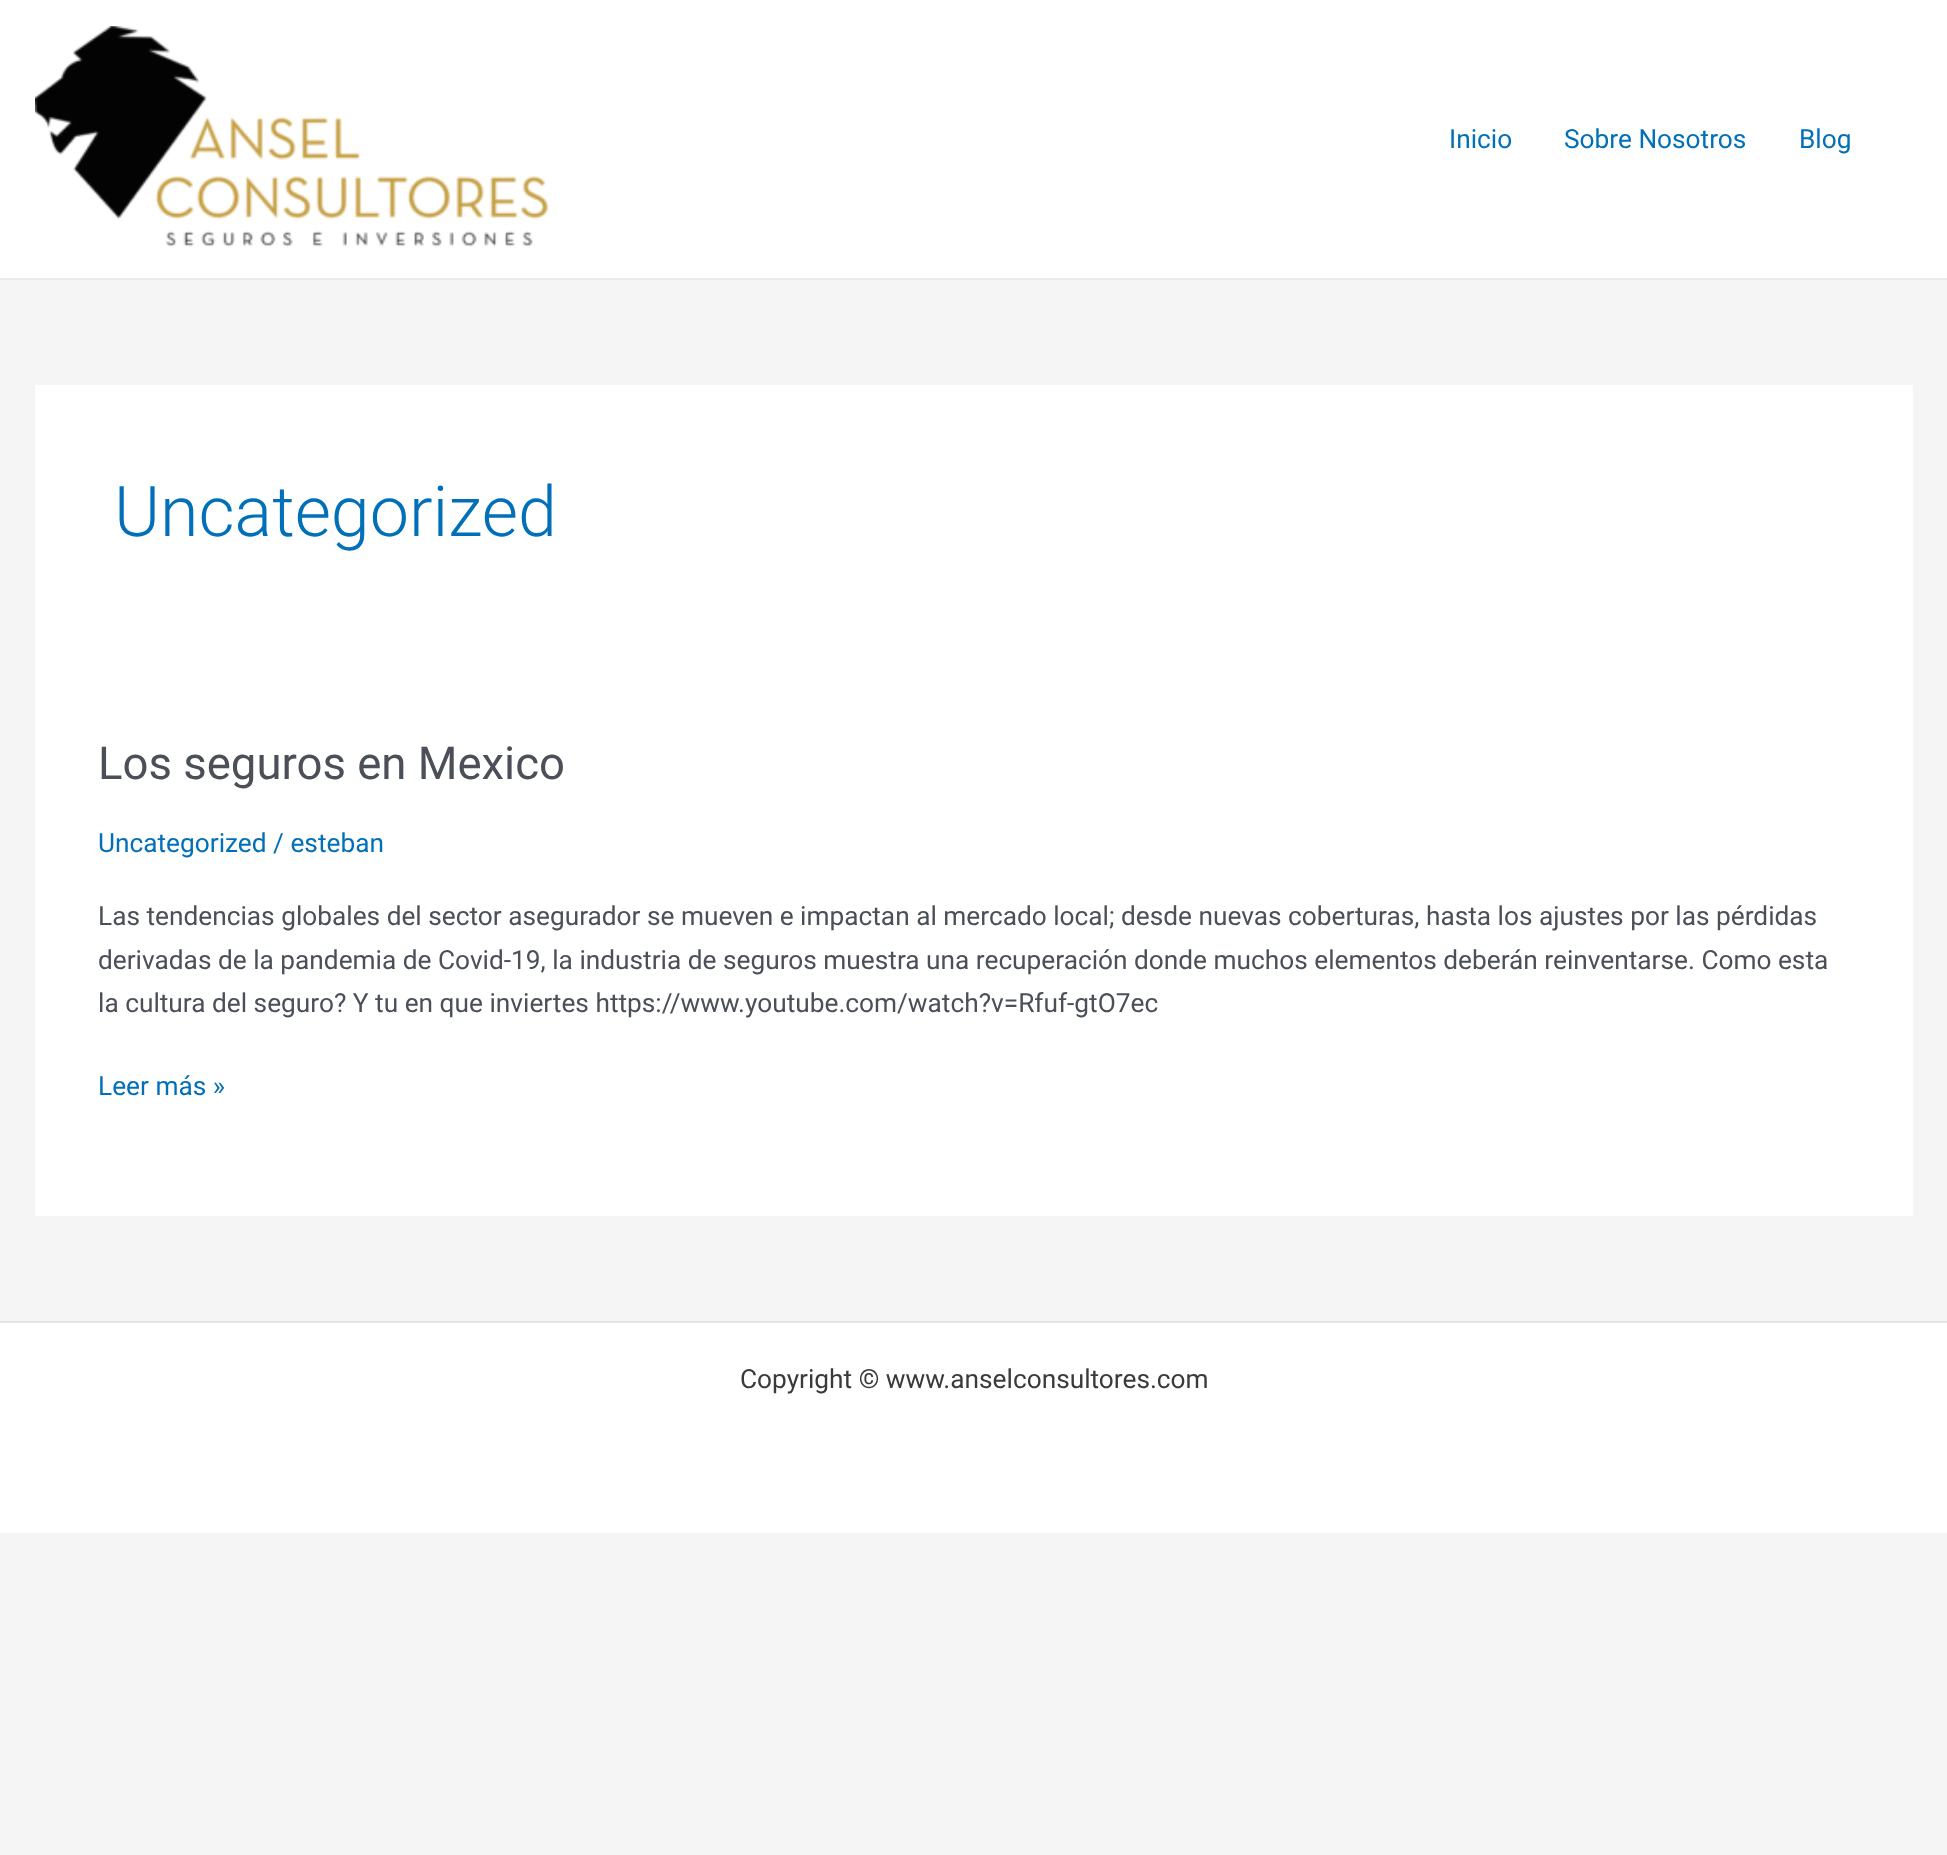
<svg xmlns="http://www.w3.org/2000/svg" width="1947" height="1855">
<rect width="100%" height="100%" fill="#f5f5f5"/>
<rect width="1947" height="278" fill="#fff"/>
<rect y="278" width="1947" height="2" fill="#eaeaea"/>
<image x="35" y="26" width="514" height="221" href="media/1.png"/>
<text x="1449" y="148" style="font-family:Roboto;font-size:26.25px;fill:#0170b9">Inicio</text>
<text x="1564" y="148" style="font-family:Roboto;font-size:26.25px;fill:#0170b9">Sobre Nosotros</text>
<text x="1799" y="148" style="font-family:Roboto;font-size:26.25px;fill:#0170b9">Blog</text>
<rect x="35" y="385" width="1878" height="831" fill="#fff"/>
<text x="114" y="536" style="font-family:Roboto;font-size:70px;font-weight:300;fill:#0170b9">Uncategorized</text>
<text x="98" y="779" style="font-family:Roboto;font-size:45.5px;fill:#4b4f58">Los seguros en Mexico</text>
<text x="98" y="852" style="font-family:Roboto;font-size:26.25px;fill:#0170b9">Uncategorized / esteban</text>
<text x="98" y="925" style="font-family:Roboto;font-size:26.25px;fill:#4b4f58">Las tendencias globales del sector asegurador se mueven e impactan al mercado local; desde nuevas coberturas, hasta los ajustes por las pérdidas</text>
<text x="98" y="969" style="font-family:Roboto;font-size:26.25px;fill:#4b4f58">derivadas de la pandemia de Covid-19, la industria de seguros muestra una recuperación donde muchos elementos deberán reinventarse. Como esta</text>
<text x="98" y="1012" style="font-family:Roboto;font-size:26.25px;fill:#4b4f58">la cultura del seguro? Y tu en que inviertes https://www.youtube.com/watch?v=Rfuf-gtO7ec</text>
<text x="98" y="1095" style="font-family:Roboto;font-size:26.25px;fill:#0170b9">Leer más »</text>
<rect y="1323" width="1947" height="210" fill="#fff"/>
<rect y="1321" width="1947" height="2" fill="#e5e5e5"/>
<text x="740" y="1388" style="font-family:Roboto;font-size:26.25px;fill:#3a3a3a">Copyright © www.anselconsultores.com</text>
</svg>
